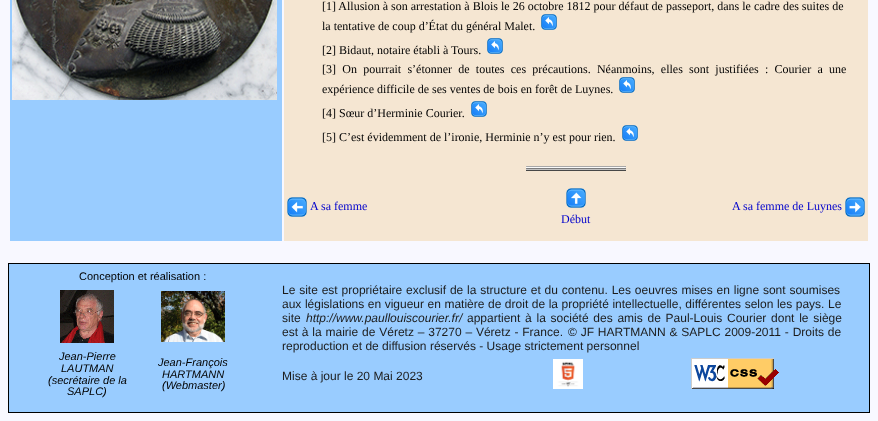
<svg xmlns="http://www.w3.org/2000/svg" width="878" height="421">
<rect width="100%" height="100%" fill="#f8f8ff"/>
<rect x="10" width="272" height="241" fill="#9cf"/>
<image x="12" y="0" width="265" height="100" href="media/1.png"/>
<rect x="284" width="584" height="241" fill="#f5e6d2"/>
<text x="322" y="10" style="font-family:Liberation Serif;font-size:12px;fill:#000">[1] Allusion à son arrestation à Blois le 26 octobre 1812 pour défaut de passeport, dans le cadre des suites de</text>
<text x="322" y="30" style="font-family:Liberation Serif;font-size:12px;fill:#000">la tentative de coup d’État du général Malet.</text>
<image x="541" y="14" width="16" height="16" href="media/2.png"/>
<text x="322" y="54" style="font-family:Liberation Serif;font-size:12px;fill:#000">[2] Bidaut, notaire établi à Tours.</text>
<image x="487" y="38" width="16" height="16" href="media/2.png"/>
<text x="322" y="73" word-spacing="3.25" style="font-family:Liberation Serif;font-size:12px;fill:#000">[3] On pourrait s’étonner de toutes ces précautions. Néanmoins, elles sont justifiées : Courier a une</text>
<text x="322" y="93" style="font-family:Liberation Serif;font-size:12px;fill:#000">expérience difficile de ses ventes de bois en forêt de Luynes.</text>
<image x="619" y="77" width="16" height="16" href="media/2.png"/>
<text x="322" y="117" style="font-family:Liberation Serif;font-size:12px;fill:#000">[4] Sœur d’Herminie Courier.</text>
<image x="471" y="101" width="16" height="16" href="media/2.png"/>
<text x="322" y="141" style="font-family:Liberation Serif;font-size:12px;fill:#000">[5] C’est évidemment de l’ironie, Herminie n’y est pour rien.</text>
<image x="622" y="125" width="16" height="16" href="media/2.png"/>
<image x="526" y="166" width="100" height="5" href="media/3.png"/>
<image x="287" y="197" width="20" height="20" href="media/4.png"/>
<text x="310" y="210" style="font-family:Liberation Serif;font-size:12px;fill:#00c">A sa femme</text>
<text x="732" y="210" style="font-family:Liberation Serif;font-size:12px;fill:#00c">A sa femme de Luynes</text>
<image x="845" y="197" width="20" height="20" href="media/5.png"/>
<image x="566" y="188" width="20" height="20" href="media/6.png"/>
<text x="561" y="223" style="font-family:Liberation Serif;font-size:12px;fill:#00c">Début</text>
<rect x="8.5" y="263.5" width="861" height="149" fill="#9cf" stroke="#000"/>
<text x="79" y="280" style="font-family:Liberation Sans;font-size:11px;fill:#000">Conception et réalisation :</text>
<image x="60" y="290" width="54" height="53" href="media/7.png"/>
<image x="161" y="291" width="64" height="51" href="media/8.png"/>
<text x="59" y="360" style="font-family:Liberation Sans;font-size:11px;font-style:italic;fill:#000">Jean-Pierre</text>
<text x="61" y="372" style="font-family:Liberation Sans;font-size:11px;font-style:italic;fill:#000">LAUTMAN</text>
<text x="48" y="384" style="font-family:Liberation Sans;font-size:11px;font-style:italic;fill:#000">(secrétaire de la</text>
<text x="67" y="395" style="font-family:Liberation Sans;font-size:11px;font-style:italic;fill:#000">SAPLC)</text>
<text x="158" y="366" style="font-family:Liberation Sans;font-size:11px;font-style:italic;fill:#000">Jean-François</text>
<text x="162" y="378" style="font-family:Liberation Sans;font-size:11px;font-style:italic;fill:#000">HARTMANN</text>
<text x="162" y="389" style="font-family:Liberation Sans;font-size:11px;font-style:italic;fill:#000">(Webmaster)</text>
<text x="282" y="294" word-spacing="0.5" style="font-family:Liberation Sans;font-size:12px;fill:#1c1c1c">Le site est propriétaire exclusif de la structure et du contenu. Les oeuvres mises en ligne sont soumises</text>
<text x="282" y="308" word-spacing="0.2" style="font-family:Liberation Sans;font-size:12px;fill:#1c1c1c">aux législations en vigueur en matière de droit de la propriété intellectuelle, différentes selon les pays.</text>
<text x="828" y="308" style="font-family:Liberation Sans;font-size:12px;fill:#1c1c1c">Le</text>
<text x="282" y="322" style="font-family:Liberation Sans;font-size:12px;fill:#1c1c1c">site</text>
<text x="306" y="322" style="font-family:Liberation Sans;font-size:12px;font-style:italic;fill:#1c1c1c">http://www.paullouiscourier.fr/</text>
<text x="467" y="322" word-spacing="1.4" style="font-family:Liberation Sans;font-size:12px;fill:#1c1c1c">appartient à la société des amis de Paul-Louis Courier dont le siège</text>
<text x="282" y="336" word-spacing="0.5" style="font-family:Liberation Sans;font-size:12px;fill:#1c1c1c">est à la mairie de Véretz – 37270 – Véretz - France.</text>
<text x="568" y="336" word-spacing="0.5" style="font-family:Liberation Sans;font-size:12px;fill:#1c1c1c">© JF HARTMANN &amp; SAPLC 2009-2011 - Droits de</text>
<text x="282" y="350" style="font-family:Liberation Sans;font-size:12px;fill:#1c1c1c">reproduction et de diffusion réservés - Usage strictement personnel</text>
<text x="282" y="380" style="font-family:Liberation Sans;font-size:12px;fill:#1c1c1c">Mise à jour le 20 Mai 2023</text>
<image x="553" y="359" width="30" height="30" href="media/9.png"/>
<image x="691" y="358" width="88" height="31" href="media/10.png"/>
</svg>
